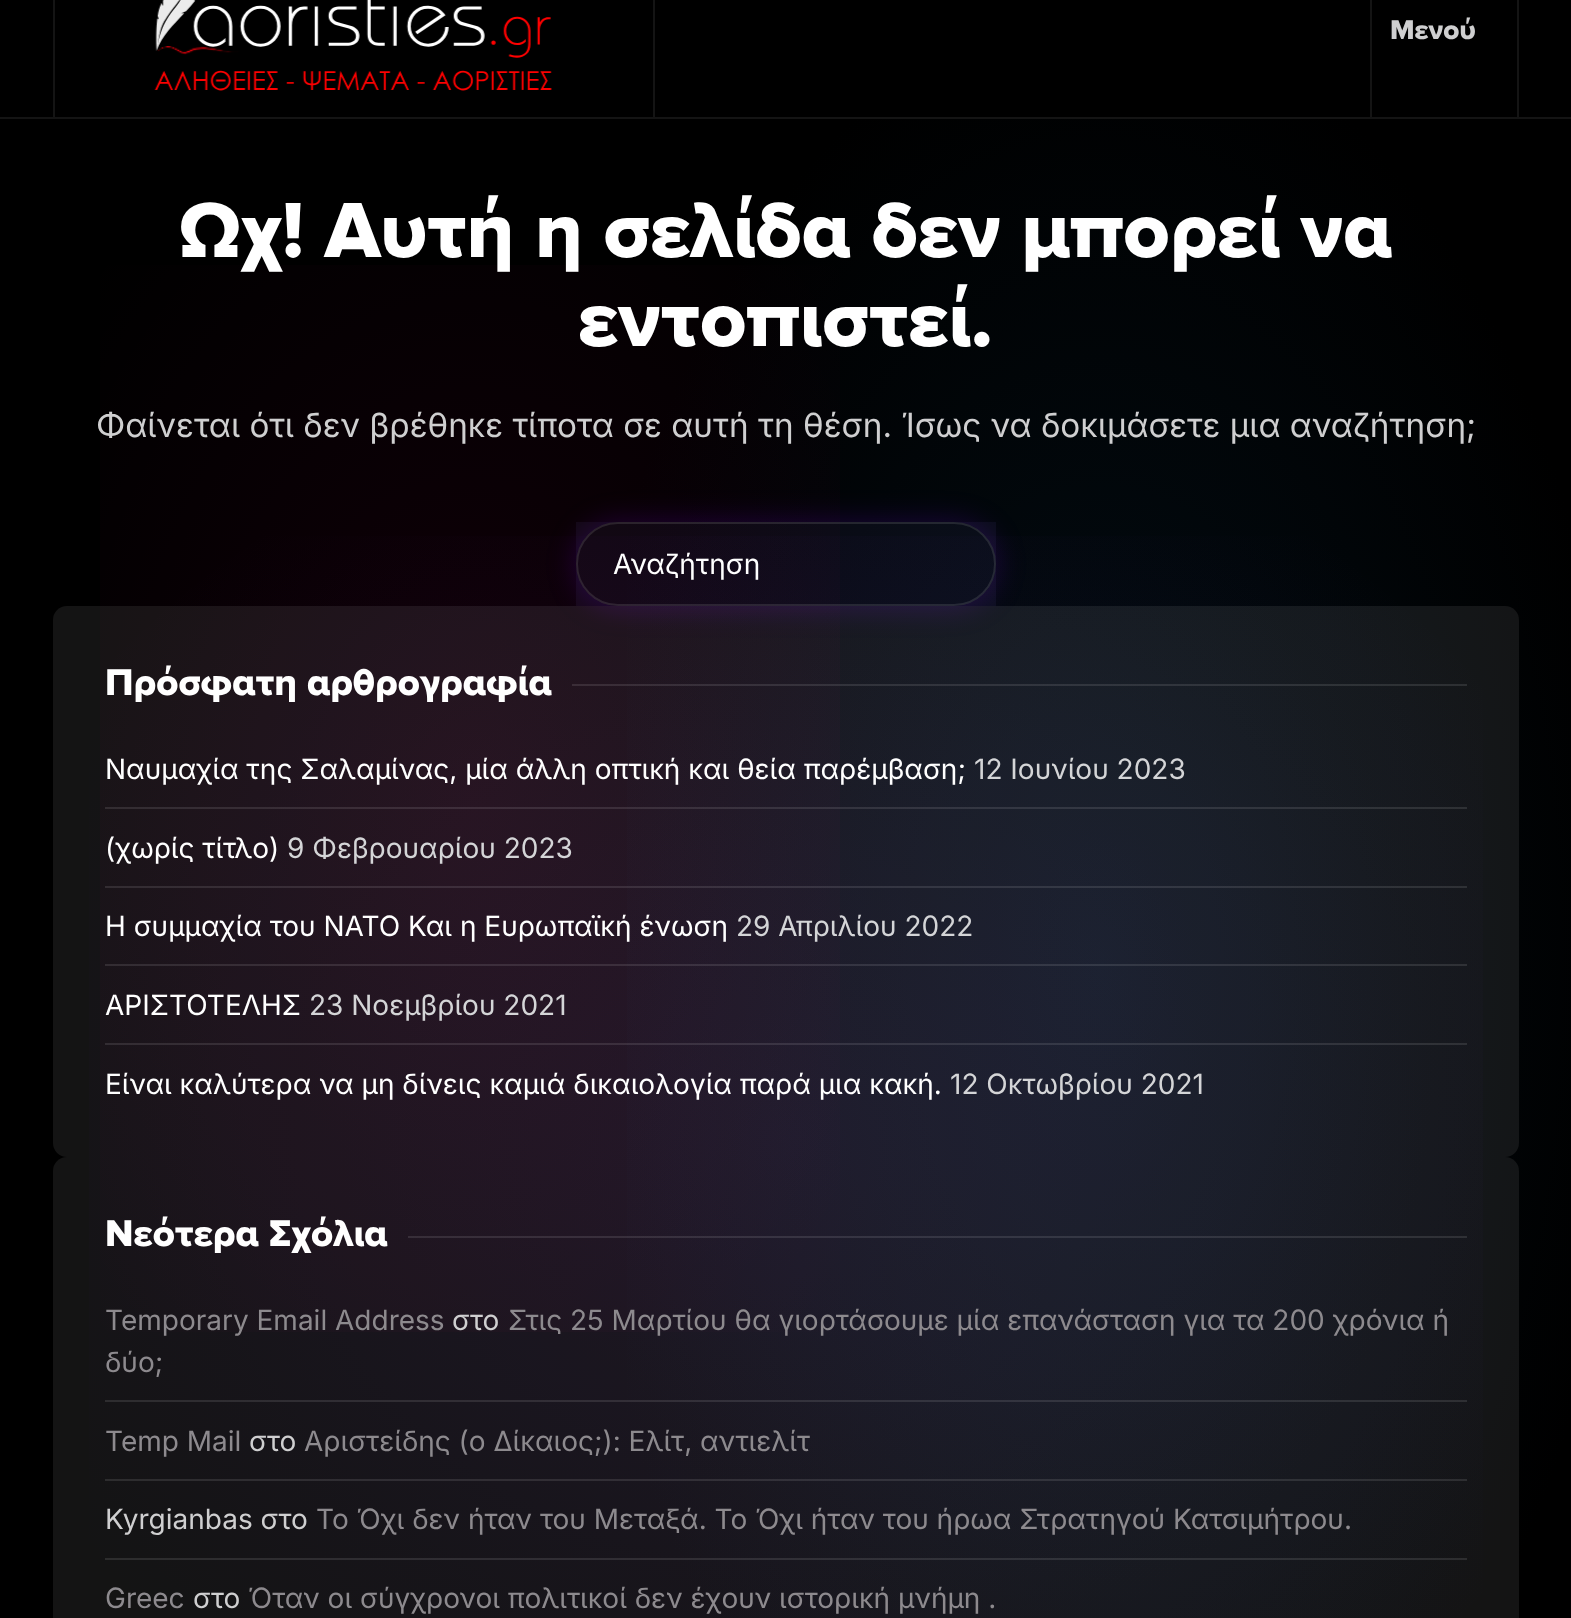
<svg xmlns="http://www.w3.org/2000/svg" width="1571" height="1618">
<defs>
<radialGradient id="g1" gradientUnits="userSpaceOnUse" cx="0" cy="0" r="1" gradientTransform="matrix(667 0 0 1203 1100 970)"><stop offset="0" stop-color="#030e16"/><stop offset="0.8" stop-color="#000"/></radialGradient>
<radialGradient id="g2" gradientUnits="userSpaceOnUse" cx="0" cy="0" r="1" gradientTransform="matrix(1111 0 0 962 786 1140)"><stop offset="0" stop-color="#6f29c9" stop-opacity="0.1"/><stop offset="0.8" stop-color="#6f29c9" stop-opacity="0"/></radialGradient>
<radialGradient id="g3" gradientUnits="userSpaceOnUse" cx="0" cy="0" r="1" gradientTransform="matrix(667 0 0 962 471 799)"><stop offset="0" stop-color="#f2007b" stop-opacity="0.07"/><stop offset="0.8" stop-color="#f2007b" stop-opacity="0"/></radialGradient>
<clipPath id="clip1"><path d="M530 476h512v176h-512zm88 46h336c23 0 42 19 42 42c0 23-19 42-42 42h-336c-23 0-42-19-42-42c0-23 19-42 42-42z" clip-rule="evenodd"/></clipPath>
</defs>
<rect width="100%" height="100%" fill="#000"/>
<rect y="117" width="1571" height="2" fill="#141414"/>
<rect x="53" width="2" height="117" fill="#141414"/>
<rect x="653" width="2" height="117" fill="#141414"/>
<image x="154" y="0" width="398" height="91" href="media/1.png"/>
<rect x="1517" width="2" height="117" fill="#141414"/>
<rect x="1370" width="2" height="117" fill="#141414"/>
<text x="1390" y="39" style="font-family:Proxima Nova;font-size:28px;font-weight:800;fill:#cfcfd0">Μενού</text>
<rect x="627" y="119" width="944" height="1499" fill="url(#g1)"/>
<rect x="89" y="536" width="1394" height="1082" fill="url(#g2)"/>
<rect x="100" y="265" width="740" height="1067" fill="url(#g3)"/>
<text x="179" y="257" style="font-family:Proxima Nova;font-size:80.8px;font-weight:800;fill:#fff">Ωχ! Αυτή η σελίδα δεν μπορεί να</text>
<text x="578" y="346" style="font-family:Proxima Nova;font-size:80.8px;font-weight:800;fill:#fff">εντοπιστεί.</text>
<text x="96" y="437" style="font-family:Inter;font-size:33.25px;fill:#cfcfd0">Φαίνεται ότι δεν βρέθηκε τίποτα σε αυτή τη θέση. Ίσως να δοκιμάσετε μια αναζήτηση;</text>
<g clip-path="url(#clip1)">
<rect x="576" y="522" width="420" height="84" rx="42" fill="#7900f238" filter="blur(15px)"/>
</g>
<rect x="576" y="522" width="420" height="84" fill="#a082ff0f"/>
<rect x="577" y="523" width="418" height="82" rx="41" fill="none" stroke="#ffffff1c" stroke-width="2"/>
<text x="613" y="574" style="font-family:Inter;font-size:28px;fill:#fff">Αναζήτηση</text>
<rect x="53" y="606" width="1466" height="551" rx="14" fill="#ffffff14"/>
<text x="105" y="695" style="font-family:Proxima Nova;font-size:38.5px;font-weight:800;fill:#fff">Πρόσφατη αρθρογραφία</text>
<rect x="572" y="684" width="895" height="2" fill="#ffffff1c"/>
<text x="105" y="779" style="font-family:Inter;font-size:28px;fill:#fff">Ναυμαχία της Σαλαμίνας, μία άλλη οπτική και θεία παρέμβαση;</text>
<text x="974" y="779" style="font-family:Inter;font-size:28px;fill:#d4d5d7">12 Ιουνίου 2023</text>
<rect x="105" y="807" width="1362" height="2" fill="#ffffff1c"/>
<text x="105" y="858" style="font-family:Inter;font-size:28px;fill:#fff">(χωρίς τίτλο)</text>
<text x="287" y="858" style="font-family:Inter;font-size:28px;fill:#d4d5d7">9 Φεβρουαρίου 2023</text>
<rect x="105" y="886" width="1362" height="2" fill="#ffffff1c"/>
<text x="105" y="936" style="font-family:Inter;font-size:28px;fill:#fff">Η συμμαχία του ΝΑΤΟ Και η Ευρωπαϊκή ένωση</text>
<text x="736" y="936" style="font-family:Inter;font-size:28px;fill:#d4d5d7">29 Απριλίου 2022</text>
<rect x="105" y="964" width="1362" height="2" fill="#ffffff1c"/>
<text x="105" y="1015" style="font-family:Inter;font-size:28px;fill:#fff">ΑΡΙΣΤΟΤΕΛΗΣ</text>
<text x="309" y="1015" style="font-family:Inter;font-size:28px;fill:#d4d5d7">23 Νοεμβρίου 2021</text>
<rect x="105" y="1043" width="1362" height="2" fill="#ffffff1c"/>
<text x="105" y="1094" style="font-family:Inter;font-size:28px;fill:#fff">Είναι καλύτερα να μη δίνεις καμιά δικαιολογία παρά μια κακή.</text>
<text x="950" y="1094" style="font-family:Inter;font-size:28px;fill:#d4d5d7">12 Οκτωβρίου 2021</text>
<rect x="53" y="1157" width="1466" height="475" rx="14" fill="#ffffff14"/>
<text x="105" y="1246" style="font-family:Proxima Nova;font-size:38.5px;font-weight:800;fill:#fff">Νεότερα Σχόλια</text>
<rect x="408" y="1236" width="1059" height="2" fill="#ffffff1c"/>
<text x="105" y="1330" style="font-family:Inter;font-size:28px;fill:#8d8a8e">Temporary Email Address</text>
<text x="452" y="1330" style="font-family:Inter;font-size:28px;fill:#cfcfd0">στο</text>
<text x="508" y="1330" style="font-family:Inter;font-size:28px;fill:#8d8a8e">Στις 25 Μαρτίου θα γιορτάσουμε μία επανάσταση για τα 200 χρόνια ή</text>
<text x="105" y="1372" style="font-family:Inter;font-size:28px;fill:#8d8a8e">δύο;</text>
<rect x="105" y="1400" width="1362" height="2" fill="#ffffff1c"/>
<text x="105" y="1451" style="font-family:Inter;font-size:28px;fill:#8d8a8e">Temp Mail</text>
<text x="249" y="1451" style="font-family:Inter;font-size:28px;fill:#cfcfd0">στο</text>
<text x="304" y="1451" style="font-family:Inter;font-size:28px;fill:#8d8a8e">Αριστείδης (ο Δίκαιος;): Ελίτ, αντιελίτ</text>
<rect x="105" y="1479" width="1362" height="2" fill="#ffffff1c"/>
<text x="105" y="1529" style="font-family:Inter;font-size:28px;fill:#cfcfd0">Kyrgianbas στο</text>
<text x="316" y="1529" style="font-family:Inter;font-size:28px;fill:#8d8a8e">Το Όχι δεν ήταν του Μεταξά. Το Όχι ήταν του ήρωα Στρατηγού Κατσιμήτρου.</text>
<rect x="105" y="1558" width="1362" height="2" fill="#ffffff1c"/>
<text x="105" y="1608" style="font-family:Inter;font-size:28px;fill:#8d8a8e">Greec</text>
<text x="193" y="1608" style="font-family:Inter;font-size:28px;fill:#cfcfd0">στο</text>
<text x="248" y="1608" style="font-family:Inter;font-size:28px;fill:#8d8a8e">Όταν οι σύγχρονοι πολιτικοί δεν έχουν ιστορική μνήμη .</text>
</svg>
